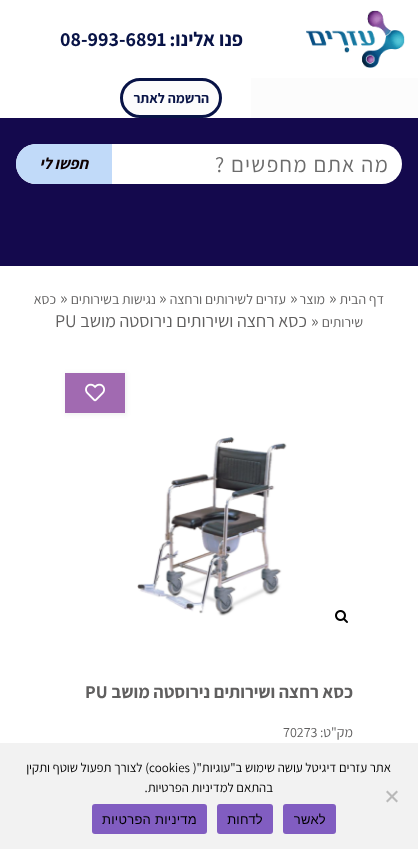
<svg xmlns="http://www.w3.org/2000/svg" width="418" height="849">
<rect width="100%" height="100%" fill="#fff"/>
<image x="306" y="10" width="99" height="58" href="media/1.png"/>
<text x="243" y="46" style="font-family:Assistant;font-size:20px;font-weight:bold;direction:rtl;fill:#081346">פנו אלינו:</text>
<text x="60" y="46" style="font-family:Assistant;font-size:20px;font-weight:bold;fill:#081346">08-993-6891</text>
<rect x="251" y="78" width="167" height="40" fill="#fcfcfc"/>
<rect x="121.5" y="79.5" width="99" height="37" rx="18.5" fill="#fcfcfc" stroke="#081346" stroke-width="3"/>
<text x="209" y="103" style="font-family:Assistant;font-size:14px;font-weight:bold;direction:rtl;fill:#081346">הרשמה לאתר</text>
<rect y="118" width="418" height="148" fill="#14094d"/>
<rect x="16" y="144" width="386" height="40" rx="20" fill="#fff"/>
<text x="389" y="172" style="font-family:Assistant;font-size:22px;letter-spacing:1.25px;direction:rtl;fill:#6c6c6c">מה אתם מחפשים ?</text>
<path d="M36 144h76v40h-76c-11 0-20-9-20-20c0-11 9-20 20-20z" fill="#c1daf9"/>
<text x="88" y="169" style="font-family:Assistant;font-size:16px;font-weight:bold;font-style:italic;direction:rtl;fill:#0f0101">חפשו לי</text>
<text x="384" y="304" style="font-family:Assistant;font-size:14px;direction:rtl;fill:#605f5f">דף הבית</text>
<text x="329" y="304" style="font-family:Assistant;font-size:18px;fill:#605f5f">»</text>
<text x="325" y="304" style="font-family:Assistant;font-size:14px;direction:rtl;fill:#605f5f">מוצר</text>
<text x="290" y="304" style="font-family:Assistant;font-size:18px;fill:#605f5f">»</text>
<text x="286" y="304" style="font-family:Assistant;font-size:14px;direction:rtl;fill:#605f5f">עזרים לשירותים ורחצה</text>
<text x="159" y="304" style="font-family:Assistant;font-size:18px;fill:#605f5f">»</text>
<text x="156" y="304" style="font-family:Assistant;font-size:14px;direction:rtl;fill:#605f5f">נגישות בשירותים</text>
<text x="60" y="304" style="font-family:Assistant;font-size:18px;fill:#605f5f">»</text>
<text x="56" y="304" style="font-family:Assistant;font-size:14px;direction:rtl;fill:#605f5f">כסא</text>
<text x="363" y="327" style="font-family:Assistant;font-size:14px;direction:rtl;fill:#605f5f">שירותים</text>
<text x="311" y="327" style="font-family:Assistant;font-size:18px;fill:#605f5f">»</text>
<text x="307" y="327" style="font-family:Assistant;font-size:18px;direction:rtl;fill:#605f5f">כסא רחצה ושירותים נירוסטה מושב</text>
<text x="55" y="327" style="font-family:Assistant;font-size:18px;fill:#605f5f">PU</text>
<rect x="65" y="373" width="62" height="42" fill="#2d343412" filter="blur(2px)"/>
<rect x="65" y="373" width="60" height="40" fill="#a16ab1"/>
<image x="85" y="383" width="20" height="19" href="media/2.png"/>
<image x="335" y="610" width="13" height="13" href="media/3.png"/>
<image x="137" y="437" width="150" height="179" href="media/4.png"/>
<text x="353" y="698" style="font-family:Assistant;font-size:18px;font-weight:bold;direction:rtl;fill:#605f5f">כסא רחצה ושירותים נירוסטה מושב</text>
<text x="85" y="698" style="font-family:Assistant;font-size:18px;font-weight:bold;fill:#605f5f">PU</text>
<text x="353" y="737" style="font-family:Assistant;font-size:14px;direction:rtl;fill:#605f5f">מק"ט:</text>
<text x="283" y="737" style="font-family:Assistant;font-size:14px;fill:#605f5f">70273</text>
<rect y="743" width="418" height="106" fill="#f2f2f2"/>
<text x="391" y="772" style="font-family:Assistant;font-size:13px;direction:rtl;fill:#000">אתר עזרים דיגיטל עושה שימוש ב"עוגיות"(</text>
<text x="149" y="772" style="font-family:Assistant;font-size:13px;fill:#000">cookies</text>
<text x="149" y="772" style="font-family:Assistant;font-size:13px;direction:rtl;fill:#000">) לצורך תפעול שוטף ותקין</text>
<text x="273" y="792" style="font-family:Assistant;font-size:13px;direction:rtl;fill:#000">בהתאם למדיניות הפרטיות.</text>
<path d="M396.5 790.5l1.5 1.5l-10.5 10.5l-1.5-1.5z" fill="#b9b9b9"/>
<path d="M386 792l1.5-1.5l10.5 10.5l-1.5 1.5z" fill="#b9b9b9"/>
<rect x="283" y="804" width="53" height="30" rx="3" fill="#815dc1"/>
<text x="326" y="824" style="font-family:Liberation Sans;font-size:13px;letter-spacing:0.25px;direction:rtl;fill:#000">לאשר</text>
<rect x="217" y="804" width="56" height="30" rx="3" fill="#815dc1"/>
<text x="263" y="824" style="font-family:Liberation Sans;font-size:13px;letter-spacing:0.25px;direction:rtl;fill:#000">לדחות</text>
<rect x="92" y="804" width="115" height="30" rx="3" fill="#815dc1"/>
<text x="197" y="824" style="font-family:Liberation Sans;font-size:13px;letter-spacing:0.25px;direction:rtl;fill:#000">מדיניות הפרטיות</text>
</svg>
